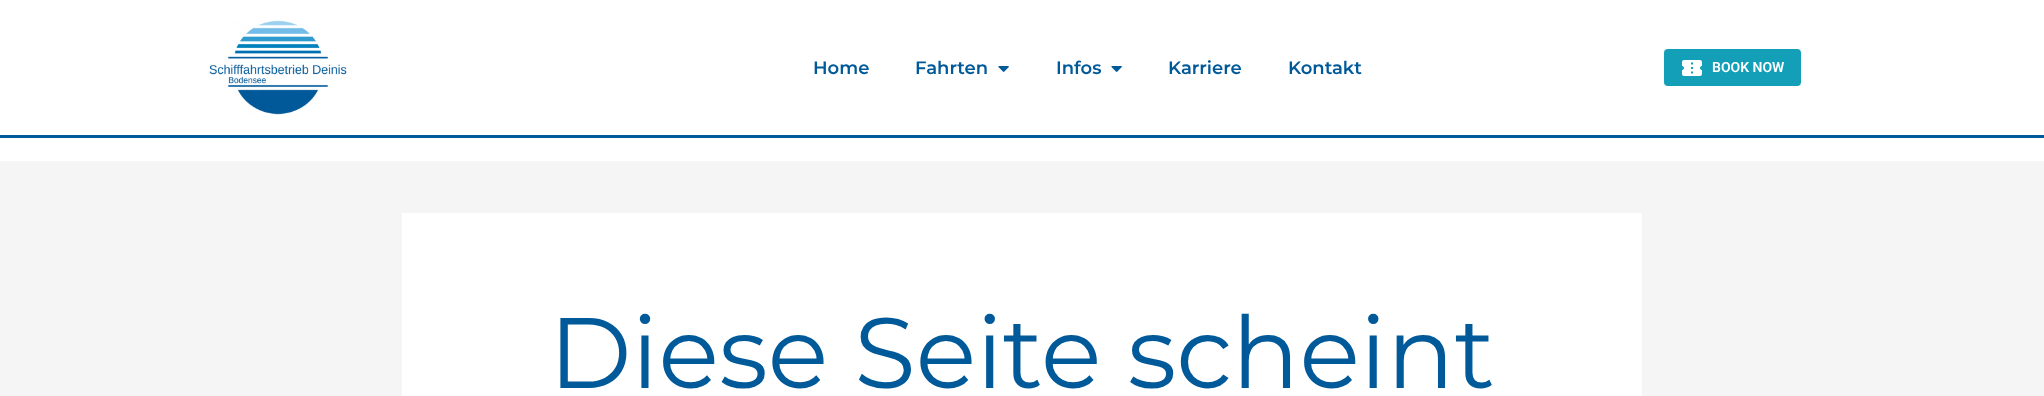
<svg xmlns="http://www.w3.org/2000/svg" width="2044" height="396">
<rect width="100%" height="100%" fill="#f5f5f5"/>
<rect width="2044" height="161" fill="#fff"/>
<rect y="135" width="2044" height="3" fill="#005999"/>
<image x="209" y="20" width="138" height="95" href="media/1.png"/>
<text x="813" y="74" style="font-family:Montserrat;font-size:18px;font-weight:600;fill:#005999">Home</text>
<text x="915" y="74" style="font-family:Montserrat;font-size:18px;font-weight:600;fill:#005999">Fahrten</text>
<image x="998" y="66" width="11" height="6" href="media/2.png"/>
<text x="1056" y="74" style="font-family:Montserrat;font-size:18px;font-weight:600;fill:#005999">Infos</text>
<image x="1111" y="66" width="11" height="6" href="media/2.png"/>
<text x="1168" y="74" style="font-family:Montserrat;font-size:18px;font-weight:600;fill:#005999">Karriere</text>
<text x="1288" y="74" style="font-family:Montserrat;font-size:18px;font-weight:600;fill:#005999">Kontakt</text>
<rect x="1664" y="49" width="137" height="37" rx="4" fill="#149fb8"/>
<image x="1682" y="60" width="20" height="16" href="media/3.png"/>
<text x="1712" y="72" style="font-family:Roboto;font-size:14px;font-weight:600;fill:#fff">BOOK NOW</text>
<rect x="402" y="213" width="1240" height="183" fill="#fff"/>
<text x="549" y="388" style="font-family:Montserrat;font-size:100px;fill:#005999">Diese Seite scheint</text>
</svg>
